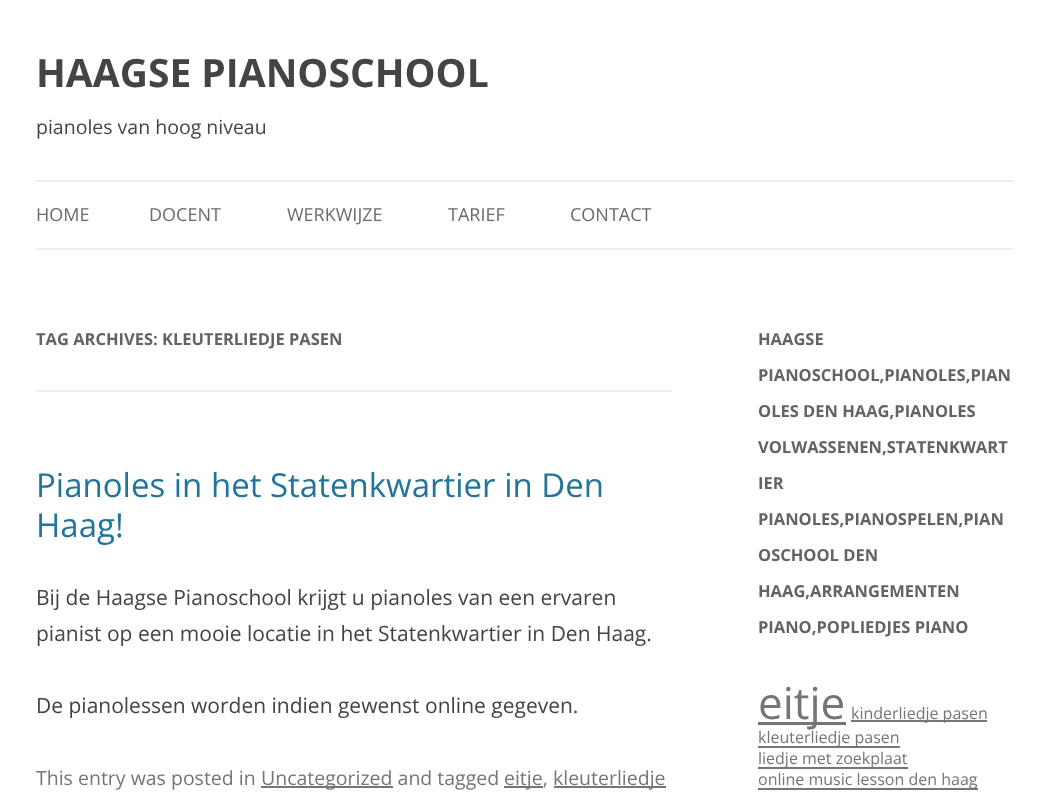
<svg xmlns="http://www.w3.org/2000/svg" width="1048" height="798">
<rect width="100%" height="100%" fill="#fff"/>
<text x="36" y="87" style="font-family:Open Sans;font-size:39px;font-weight:bold;fill:#444">HAAGSE PIANOSCHOOL</text>
<text x="36" y="134" style="font-family:Open Sans;font-size:19.5px;fill:#444">pianoles van hoog niveau</text>
<rect x="36" y="180" width="977" height="2" fill="#ededed"/>
<rect x="36" y="248" width="977" height="2" fill="#ededed"/>
<text x="36" y="221" style="font-family:Open Sans;font-size:18px;fill:#6a6a6a">HOME</text>
<text x="149" y="221" style="font-family:Open Sans;font-size:18px;fill:#6a6a6a">DOCENT</text>
<text x="287" y="221" style="font-family:Open Sans;font-size:18px;fill:#6a6a6a">WERKWIJZE</text>
<text x="448" y="221" style="font-family:Open Sans;font-size:18px;fill:#6a6a6a">TARIEF</text>
<text x="570" y="221" style="font-family:Open Sans;font-size:18px;fill:#6a6a6a">CONTACT</text>
<rect x="36" y="390" width="636" height="2" fill="#ededed"/>
<text x="36" y="345" style="font-family:Open Sans;font-size:16.5px;font-weight:bold;fill:#636363">TAG ARCHIVES: KLEUTERLIEDJE PASEN</text>
<text x="36" y="497" style="font-family:Open Sans;font-size:33px;fill:#21759b">Pianoles in het Statenkwartier in Den</text>
<text x="36" y="537" style="font-family:Open Sans;font-size:33px;fill:#21759b">Haag!</text>
<text x="36" y="605" style="font-family:Open Sans;font-size:21px;fill:#444">Bij de Haagse Pianoschool krijgt u pianoles van een ervaren</text>
<text x="36" y="641" style="font-family:Open Sans;font-size:21px;fill:#444">pianist op een mooie locatie in het Statenkwartier in Den Haag.</text>
<text x="36" y="713" style="font-family:Open Sans;font-size:21px;fill:#444">De pianolessen worden indien gewenst online gegeven.</text>
<text x="36" y="785" style="font-family:Open Sans;font-size:19.5px;fill:#757575">This entry was posted in</text>
<rect x="261" y="786" width="132" height="2" fill="#757575"/>
<text x="261" y="785" style="font-family:Open Sans;font-size:19.5px;fill:#757575">Uncategorized and tagged</text>
<rect x="504" y="786" width="39" height="2" fill="#757575"/>
<text x="504" y="785" style="font-family:Open Sans;font-size:19.5px;fill:#757575">eitje,</text>
<rect x="554" y="786" width="112" height="2" fill="#757575"/>
<text x="553" y="785" style="font-family:Open Sans;font-size:19.5px;fill:#757575">kleuterliedje</text>
<text x="758" y="345" style="font-family:Open Sans;font-size:16.5px;font-weight:bold;fill:#636363">HAAGSE</text>
<text x="758" y="381" style="font-family:Open Sans;font-size:16.5px;font-weight:bold;fill:#636363">PIANOSCHOOL,PIANOLES,PIAN</text>
<text x="758" y="417" style="font-family:Open Sans;font-size:16.5px;font-weight:bold;fill:#636363">OLES DEN HAAG,PIANOLES</text>
<text x="758" y="453" style="font-family:Open Sans;font-size:16.5px;font-weight:bold;fill:#636363">VOLWASSENEN,STATENKWART</text>
<text x="758" y="489" style="font-family:Open Sans;font-size:16.5px;font-weight:bold;fill:#636363">IER</text>
<text x="758" y="525" style="font-family:Open Sans;font-size:16.5px;font-weight:bold;fill:#636363">PIANOLES,PIANOSPELEN,PIAN</text>
<text x="758" y="561" style="font-family:Open Sans;font-size:16.5px;font-weight:bold;fill:#636363">OSCHOOL DEN</text>
<text x="758" y="597" style="font-family:Open Sans;font-size:16.5px;font-weight:bold;fill:#636363">HAAG,ARRANGEMENTEN</text>
<text x="758" y="633" style="font-family:Open Sans;font-size:16.5px;font-weight:bold;fill:#636363">PIANO,POPLIEDJES PIANO</text>
<rect x="758" y="722" width="88" height="3" fill="#757575"/>
<text x="758" y="719" style="font-family:Open Sans;font-size:44px;fill:#757575">eitje</text>
<rect x="851" y="720" width="136" height="2" fill="#757575"/>
<text x="851" y="719" style="font-family:Open Sans;font-size:16px;fill:#757575">kinderliedje pasen</text>
<rect x="758" y="746" width="142" height="2" fill="#757575"/>
<text x="758" y="743" style="font-family:Open Sans;font-size:16px;fill:#757575">kleuterliedje pasen</text>
<rect x="758" y="767" width="150" height="2" fill="#757575"/>
<text x="758" y="764" style="font-family:Open Sans;font-size:16px;fill:#757575">liedje met zoekplaat</text>
<rect x="758" y="788" width="220" height="2" fill="#757575"/>
<text x="758" y="785" style="font-family:Open Sans;font-size:16px;fill:#757575">online music lesson den haag</text>
</svg>
